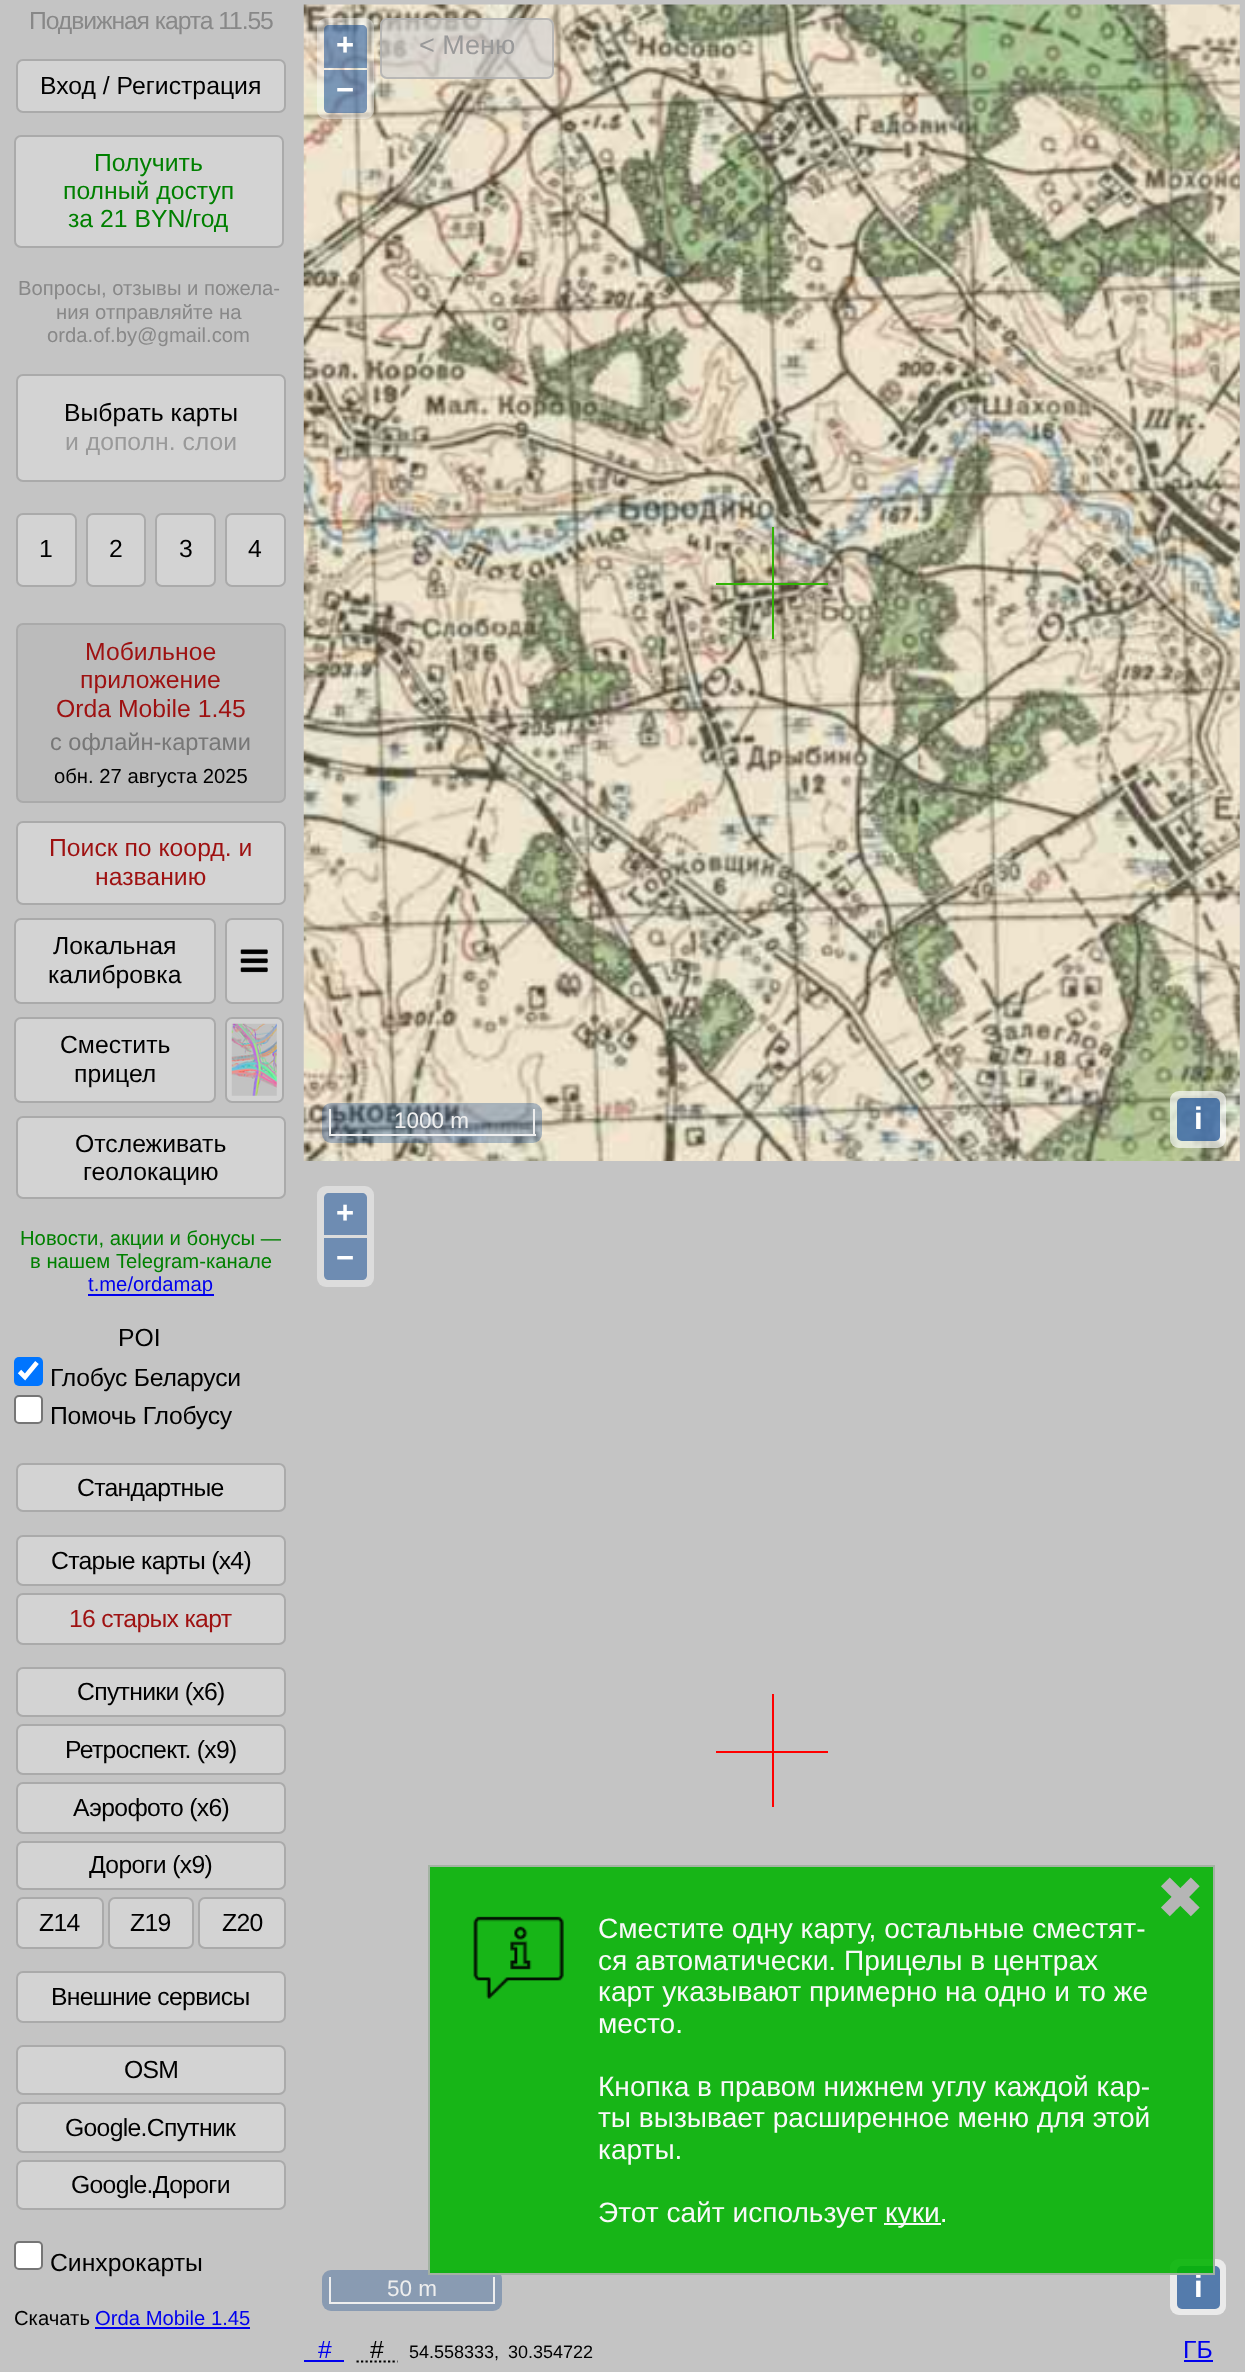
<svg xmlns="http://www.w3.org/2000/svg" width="1245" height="2372">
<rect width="100%" height="100%" fill="#c4c4c4"/>
<text x="29" y="29" style="font-family:Liberation Sans;font-size:24.75px;letter-spacing:-1.1px;fill:#888">Подвижная карта 11.55</text>
<rect x="17" y="60" width="268" height="52" rx="6" fill="#d3d3d3" stroke="#aaa" stroke-width="2"/>
<text x="40" y="94" style="font-family:Liberation Sans;font-size:24.75px;fill:#000">Вход / Регистрация</text>
<rect x="15" y="136" width="268" height="111" rx="6" fill="#d3d3d3" stroke="#aaa" stroke-width="2"/>
<text x="94" y="171" style="font-family:Liberation Sans;font-size:24.75px;fill:#008000">Получить</text>
<text x="63" y="199" style="font-family:Liberation Sans;font-size:24.75px;fill:#008000">полный доступ</text>
<text x="68" y="227" style="font-family:Liberation Sans;font-size:24.75px;fill:#008000">за 21 BYN/год</text>
<text x="18" y="295" style="font-family:Liberation Sans;font-size:20.25px;fill:#888">Вопросы, отзывы и пожела-</text>
<text x="56" y="319" style="font-family:Liberation Sans;font-size:20.25px;fill:#888">ния отправляйте на</text>
<text x="47" y="342" style="font-family:Liberation Sans;font-size:20.25px;fill:#888">orda.of.by@gmail.com</text>
<rect x="17" y="375" width="268" height="106" rx="6" fill="#d3d3d3" stroke="#aaa" stroke-width="2"/>
<text x="64" y="421" style="font-family:Liberation Sans;font-size:24.75px;fill:#000">Выбрать карты</text>
<text x="65" y="450" style="font-family:Liberation Sans;font-size:24.75px;fill:#999">и дополн. слои</text>
<rect x="17" y="514" width="59" height="72" rx="6" fill="#d3d3d3" stroke="#aaa" stroke-width="2"/>
<text x="39" y="557" style="font-family:Liberation Sans;font-size:24.75px;fill:#000">1</text>
<rect x="87" y="514" width="58" height="72" rx="6" fill="#d3d3d3" stroke="#aaa" stroke-width="2"/>
<text x="109" y="557" style="font-family:Liberation Sans;font-size:24.75px;fill:#000">2</text>
<rect x="156" y="514" width="59" height="72" rx="6" fill="#d3d3d3" stroke="#aaa" stroke-width="2"/>
<text x="179" y="557" style="font-family:Liberation Sans;font-size:24.75px;fill:#000">3</text>
<rect x="226" y="514" width="59" height="72" rx="6" fill="#d3d3d3" stroke="#aaa" stroke-width="2"/>
<text x="248" y="557" style="font-family:Liberation Sans;font-size:24.75px;fill:#000">4</text>
<rect x="17" y="624" width="268" height="178" rx="6" fill="#bbb" stroke="#aaa" stroke-width="2"/>
<text x="85" y="660" style="font-family:Liberation Sans;font-size:24.75px;fill:#9e1111">Мобильное</text>
<text x="80" y="688" style="font-family:Liberation Sans;font-size:24.75px;fill:#9e1111">приложение</text>
<text x="56" y="717" style="font-family:Liberation Sans;font-size:24.75px;fill:#9e1111">Orda Mobile 1.45</text>
<text x="50" y="750" style="font-family:Liberation Sans;font-size:23.6px;fill:#777">с офлайн-картами</text>
<text x="54" y="783" style="font-family:Liberation Sans;font-size:20.25px;fill:#000">обн. 27 августа 2025</text>
<rect x="17" y="822" width="268" height="82" rx="6" fill="#d3d3d3" stroke="#aaa" stroke-width="2"/>
<text x="49" y="856" style="font-family:Liberation Sans;font-size:24.75px;fill:#9e1111">Поиск по коорд. и</text>
<text x="95" y="885" style="font-family:Liberation Sans;font-size:24.75px;fill:#9e1111">названию</text>
<rect x="15" y="919" width="200" height="84" rx="6" fill="#d3d3d3" stroke="#aaa" stroke-width="2"/>
<text x="53" y="954" style="font-family:Liberation Sans;font-size:24.75px;fill:#000">Локальная</text>
<text x="48" y="983" style="font-family:Liberation Sans;font-size:24.75px;fill:#000">калибровка</text>
<rect x="226" y="919" width="57" height="84" rx="6" fill="#d3d3d3" stroke="#aaa" stroke-width="2"/>
<image x="240" y="949" width="28" height="24" href="media/1.png"/>
<rect x="15" y="1018" width="200" height="84" rx="6" fill="#d3d3d3" stroke="#aaa" stroke-width="2"/>
<text x="60" y="1053" style="font-family:Liberation Sans;font-size:24.75px;fill:#000">Сместить</text>
<text x="74" y="1082" style="font-family:Liberation Sans;font-size:24.75px;fill:#000">прицел</text>
<rect x="226" y="1018" width="57" height="84" rx="6" fill="#d3d3d3" stroke="#aaa" stroke-width="2"/>
<image x="231" y="1023" width="46" height="73" href="media/2.png"/>
<rect x="17" y="1117" width="268" height="81" rx="6" fill="#d3d3d3" stroke="#aaa" stroke-width="2"/>
<text x="75" y="1152" style="font-family:Liberation Sans;font-size:24.75px;fill:#000">Отслеживать</text>
<text x="83" y="1180" style="font-family:Liberation Sans;font-size:24.75px;fill:#000">геолокацию</text>
<text x="20" y="1245" style="font-family:Liberation Sans;font-size:20.25px;fill:#008000">Новости, акции и бонусы —</text>
<text x="30" y="1268" style="font-family:Liberation Sans;font-size:20.25px;fill:#008000">в нашем Telegram-канале</text>
<rect x="88" y="1294" width="126" height="2" fill="#00e"/>
<text x="88" y="1291" style="font-family:Liberation Sans;font-size:20.25px;fill:#00e">t.me/ordamap</text>
<text x="118" y="1346" style="font-family:Liberation Sans;font-size:24.75px;fill:#000">POI</text>
<rect x="14" y="1357" width="29" height="29" rx="5" fill="#0075ff"/>
<path d="M19.5 1371.5l5.5 5.5l12-14.5" fill="none" stroke="#fff" stroke-width="4.7"/>
<text x="50" y="1386" style="font-family:Liberation Sans;font-size:24.75px;letter-spacing:-0.25px;fill:#000">Глобус Беларуси</text>
<rect x="15" y="1396" width="27" height="27" rx="4" fill="#fff" stroke="#767676" stroke-width="2"/>
<text x="50" y="1424" style="font-family:Liberation Sans;font-size:24.75px;letter-spacing:-0.25px;fill:#000">Помочь Глобусу</text>
<rect x="17" y="1464" width="268" height="47" rx="6" fill="#d3d3d3" stroke="#aaa" stroke-width="2"/>
<text x="77" y="1496" style="font-family:Liberation Sans;font-size:24.75px;letter-spacing:-0.7px;fill:#000">Стандартные</text>
<rect x="17" y="1536" width="268" height="49" rx="6" fill="#d3d3d3" stroke="#aaa" stroke-width="2"/>
<text x="51" y="1569" style="font-family:Liberation Sans;font-size:24.75px;letter-spacing:-0.7px;fill:#000">Старые карты (x4)</text>
<rect x="17" y="1594" width="268" height="50" rx="6" fill="#d3d3d3" stroke="#aaa" stroke-width="2"/>
<text x="69" y="1627" style="font-family:Liberation Sans;font-size:24.75px;letter-spacing:-0.7px;fill:#9e1111">16 старых карт</text>
<rect x="17" y="1668" width="268" height="48" rx="6" fill="#d3d3d3" stroke="#aaa" stroke-width="2"/>
<text x="77" y="1700" style="font-family:Liberation Sans;font-size:24.75px;letter-spacing:-0.7px;fill:#000">Спутники (x6)</text>
<rect x="17" y="1725" width="268" height="49" rx="6" fill="#d3d3d3" stroke="#aaa" stroke-width="2"/>
<text x="65" y="1758" style="font-family:Liberation Sans;font-size:24.75px;letter-spacing:-0.7px;fill:#000">Ретроспект. (x9)</text>
<rect x="17" y="1783" width="268" height="50" rx="6" fill="#d3d3d3" stroke="#aaa" stroke-width="2"/>
<text x="73" y="1816" style="font-family:Liberation Sans;font-size:24.75px;letter-spacing:-0.7px;fill:#000">Аэрофото (x6)</text>
<rect x="17" y="1842" width="268" height="47" rx="6" fill="#d3d3d3" stroke="#aaa" stroke-width="2"/>
<text x="89" y="1873" style="font-family:Liberation Sans;font-size:24.75px;letter-spacing:-0.7px;fill:#000">Дороги (x9)</text>
<rect x="17" y="1898" width="86" height="50" rx="6" fill="#d3d3d3" stroke="#aaa" stroke-width="2"/>
<text x="39" y="1931" style="font-family:Liberation Sans;font-size:24.75px;letter-spacing:-0.7px;fill:#000">Z14</text>
<rect x="109" y="1898" width="84" height="50" rx="6" fill="#d3d3d3" stroke="#aaa" stroke-width="2"/>
<text x="130" y="1931" style="font-family:Liberation Sans;font-size:24.75px;letter-spacing:-0.7px;fill:#000">Z19</text>
<rect x="199" y="1898" width="86" height="50" rx="6" fill="#d3d3d3" stroke="#aaa" stroke-width="2"/>
<text x="222" y="1931" style="font-family:Liberation Sans;font-size:24.75px;letter-spacing:-0.7px;fill:#000">Z20</text>
<rect x="17" y="1972" width="268" height="50" rx="6" fill="#d3d3d3" stroke="#aaa" stroke-width="2"/>
<text x="51" y="2005" style="font-family:Liberation Sans;font-size:24.75px;letter-spacing:-0.7px;fill:#000">Внешние сервисы</text>
<rect x="17" y="2046" width="268" height="48" rx="6" fill="#d3d3d3" stroke="#aaa" stroke-width="2"/>
<text x="124" y="2078" style="font-family:Liberation Sans;font-size:24.75px;letter-spacing:-0.7px;fill:#000">OSM</text>
<rect x="17" y="2103" width="268" height="49" rx="6" fill="#d3d3d3" stroke="#aaa" stroke-width="2"/>
<text x="65" y="2136" style="font-family:Liberation Sans;font-size:24.75px;letter-spacing:-0.7px;fill:#000">Google.Спутник</text>
<rect x="17" y="2161" width="268" height="48" rx="6" fill="#d3d3d3" stroke="#aaa" stroke-width="2"/>
<text x="71" y="2193" style="font-family:Liberation Sans;font-size:24.75px;letter-spacing:-0.7px;fill:#000">Google.Дороги</text>
<rect x="15" y="2242" width="27" height="27" rx="4" fill="#fff" stroke="#767676" stroke-width="2"/>
<text x="50" y="2271" style="font-family:Liberation Sans;font-size:24.75px;fill:#000">Синхрокарты</text>
<text x="14" y="2325" style="font-family:Liberation Sans;font-size:20.25px;fill:#000">Скачать</text>
<text x="95" y="2325" style="font-family:Liberation Sans;font-size:20.25px;fill:#00e">Orda Mobile 1.45</text>
<rect x="95" y="2327" width="155" height="2" fill="#00e"/>
<image x="303" y="4" width="937" height="1157" href="media/3.png"/>
<rect x="380" y="18" width="174" height="61" rx="7" fill="#d3d3d3b3"/>
<rect x="381" y="19" width="172" height="59" rx="6" fill="none" stroke="#aaaaaab3" stroke-width="2"/>
<text x="419" y="54" style="font-family:Liberation Sans;font-size:27px;fill:#999">&lt; Меню</text>
<rect x="317" y="18" width="57" height="101" rx="9" fill="#ffffff66"/>
<path d="M329 25h33c3 0 5 2 5 5v38h-43v-38c0-3 2-5 5-5z" fill="#003c8880"/>
<text x="336" y="55" style="font-family:Liberation Sans;font-size:31px;font-weight:bold;fill:#fff">+</text>
<path d="M324 70h43v38c0 3-2 5-5 5h-33c-3 0-5-2-5-5z" fill="#003c8880"/>
<text x="336" y="100" style="font-family:Liberation Sans;font-size:31px;font-weight:bold;fill:#fff">−</text>
<rect x="1170" y="1091" width="56" height="57" rx="9" fill="#ffffff66"/>
<rect x="1177" y="1098" width="43" height="43" rx="5" fill="#003c8880"/>
<text x="1194" y="1129" style="font-family:Liberation Sans;font-size:31px;font-weight:bold;fill:#fff">i</text>
<rect x="322" y="1103" width="220" height="40" rx="9" fill="#003c884d"/>
<rect x="533" y="1109" width="2" height="27" fill="#eee"/>
<rect x="329" y="1134" width="207" height="2" fill="#eee"/>
<rect x="329" y="1109" width="2" height="27" fill="#eee"/>
<text x="394" y="1128" style="font-family:Liberation Sans;font-size:22.5px;fill:#eee">1000 m</text>
<rect x="1170" y="1091" width="56" height="57" rx="9" fill="#ffffff66"/>
<rect x="1177" y="1098" width="43" height="43" rx="5" fill="#003c8880"/>
<text x="1194" y="1129" style="font-family:Liberation Sans;font-size:31px;font-weight:bold;fill:#fff">i</text>
<rect x="772" y="527" width="2" height="112" fill="#31b404"/>
<rect x="716" y="583" width="112" height="2" fill="#31b404"/>
<rect x="317" y="1186" width="57" height="101" rx="9" fill="#dcdcdc"/>
<path d="M329 1193h33c3 0 5 2 5 5v37h-43v-37c0-3 2-5 5-5z" fill="#6e8cb2"/>
<text x="336" y="1223" style="font-family:Liberation Sans;font-size:31px;font-weight:bold;fill:#fff">+</text>
<path d="M324 1238h43v37c0 3-2 5-5 5h-33c-3 0-5-2-5-5z" fill="#6e8cb2"/>
<text x="336" y="1268" style="font-family:Liberation Sans;font-size:31px;font-weight:bold;fill:#fff">−</text>
<rect x="1170" y="2259" width="56" height="56" rx="9" fill="#dcdcdc"/>
<rect x="1177" y="2266" width="43" height="43" rx="5" fill="#6e8cb2"/>
<text x="1194" y="2297" style="font-family:Liberation Sans;font-size:31px;font-weight:bold;fill:#fff">i</text>
<rect x="322" y="2270" width="180" height="41" rx="9" fill="#899bb2"/>
<rect x="493" y="2277" width="2" height="27" fill="#eee"/>
<rect x="329" y="2302" width="166" height="2" fill="#eee"/>
<rect x="329" y="2277" width="2" height="27" fill="#eee"/>
<text x="387" y="2296" style="font-family:Liberation Sans;font-size:22.5px;fill:#eee">50 m</text>
<rect x="1170" y="2259" width="56" height="56" rx="9" fill="#ffffff66"/>
<rect x="1177" y="2266" width="43" height="43" rx="5" fill="#003c8880"/>
<text x="1194" y="2297" style="font-family:Liberation Sans;font-size:31px;font-weight:bold;fill:#fff">i</text>
<rect x="772" y="1694" width="2" height="113" fill="#f00"/>
<rect x="716" y="1751" width="112" height="2" fill="#f00"/>
<text x="318" y="2358" style="font-family:Liberation Sans;font-size:24.75px;fill:#00e">#</text>
<rect x="304" y="2360" width="40" height="2" fill="#00e"/>
<text x="370" y="2358" style="font-family:Liberation Sans;font-size:24.75px;fill:#000">#</text>
<path d="M356.5 2361.5h41" fill="none" stroke="#000" stroke-width="2.2" stroke-dasharray="2.25 2.25"/>
<text x="409" y="2358" style="font-family:Liberation Sans;font-size:18px;fill:#000">54.558333,</text>
<text x="508" y="2358" style="font-family:Liberation Sans;font-size:18px;fill:#000">30.354722</text>
<text x="1183" y="2358" style="font-family:Liberation Sans;font-size:24.75px;fill:#00e">ГБ</text>
<rect x="1184" y="2360" width="29" height="2" fill="#00e"/>
<rect x="428" y="1865" width="787" height="410" fill="#04b404e6"/>
<rect x="429" y="1866" width="785" height="408" fill="none" stroke="#b3b3b3e6" stroke-width="2"/>
<text x="1156" y="1918" style="font-family:DejaVu Sans;font-size:58px;fill:#b5b5b5">✖</text>
<image x="473" y="1916" width="91" height="83" href="media/4.png"/>
<text x="598" y="1938" style="font-family:Liberation Sans;font-size:28.1px;fill:#f9f9f9">Сместите одну карту, остальные сместят-</text>
<text x="598" y="1970" style="font-family:Liberation Sans;font-size:28.1px;fill:#f9f9f9">ся автоматически. Прицелы в центрах</text>
<text x="598" y="2001" style="font-family:Liberation Sans;font-size:28.1px;fill:#f9f9f9">карт указывают примерно на одно и то же</text>
<text x="598" y="2033" style="font-family:Liberation Sans;font-size:28.1px;fill:#f9f9f9">место.</text>
<text x="598" y="2096" style="font-family:Liberation Sans;font-size:28.1px;fill:#f9f9f9">Кнопка в правом нижнем углу каждой кар-</text>
<text x="598" y="2127" style="font-family:Liberation Sans;font-size:28.1px;fill:#f9f9f9">ты вызывает расширенное меню для этой</text>
<text x="598" y="2159" style="font-family:Liberation Sans;font-size:28.1px;fill:#f9f9f9">карты.</text>
<text x="598" y="2222" style="font-family:Liberation Sans;font-size:28.1px;fill:#f9f9f9">Этот сайт использует</text>
<rect x="884" y="2223" width="57" height="2" fill="#f9f9f9"/>
<text x="885" y="2222" style="font-family:Liberation Sans;font-size:28.1px;fill:#f9f9f9">куки.</text>
</svg>
